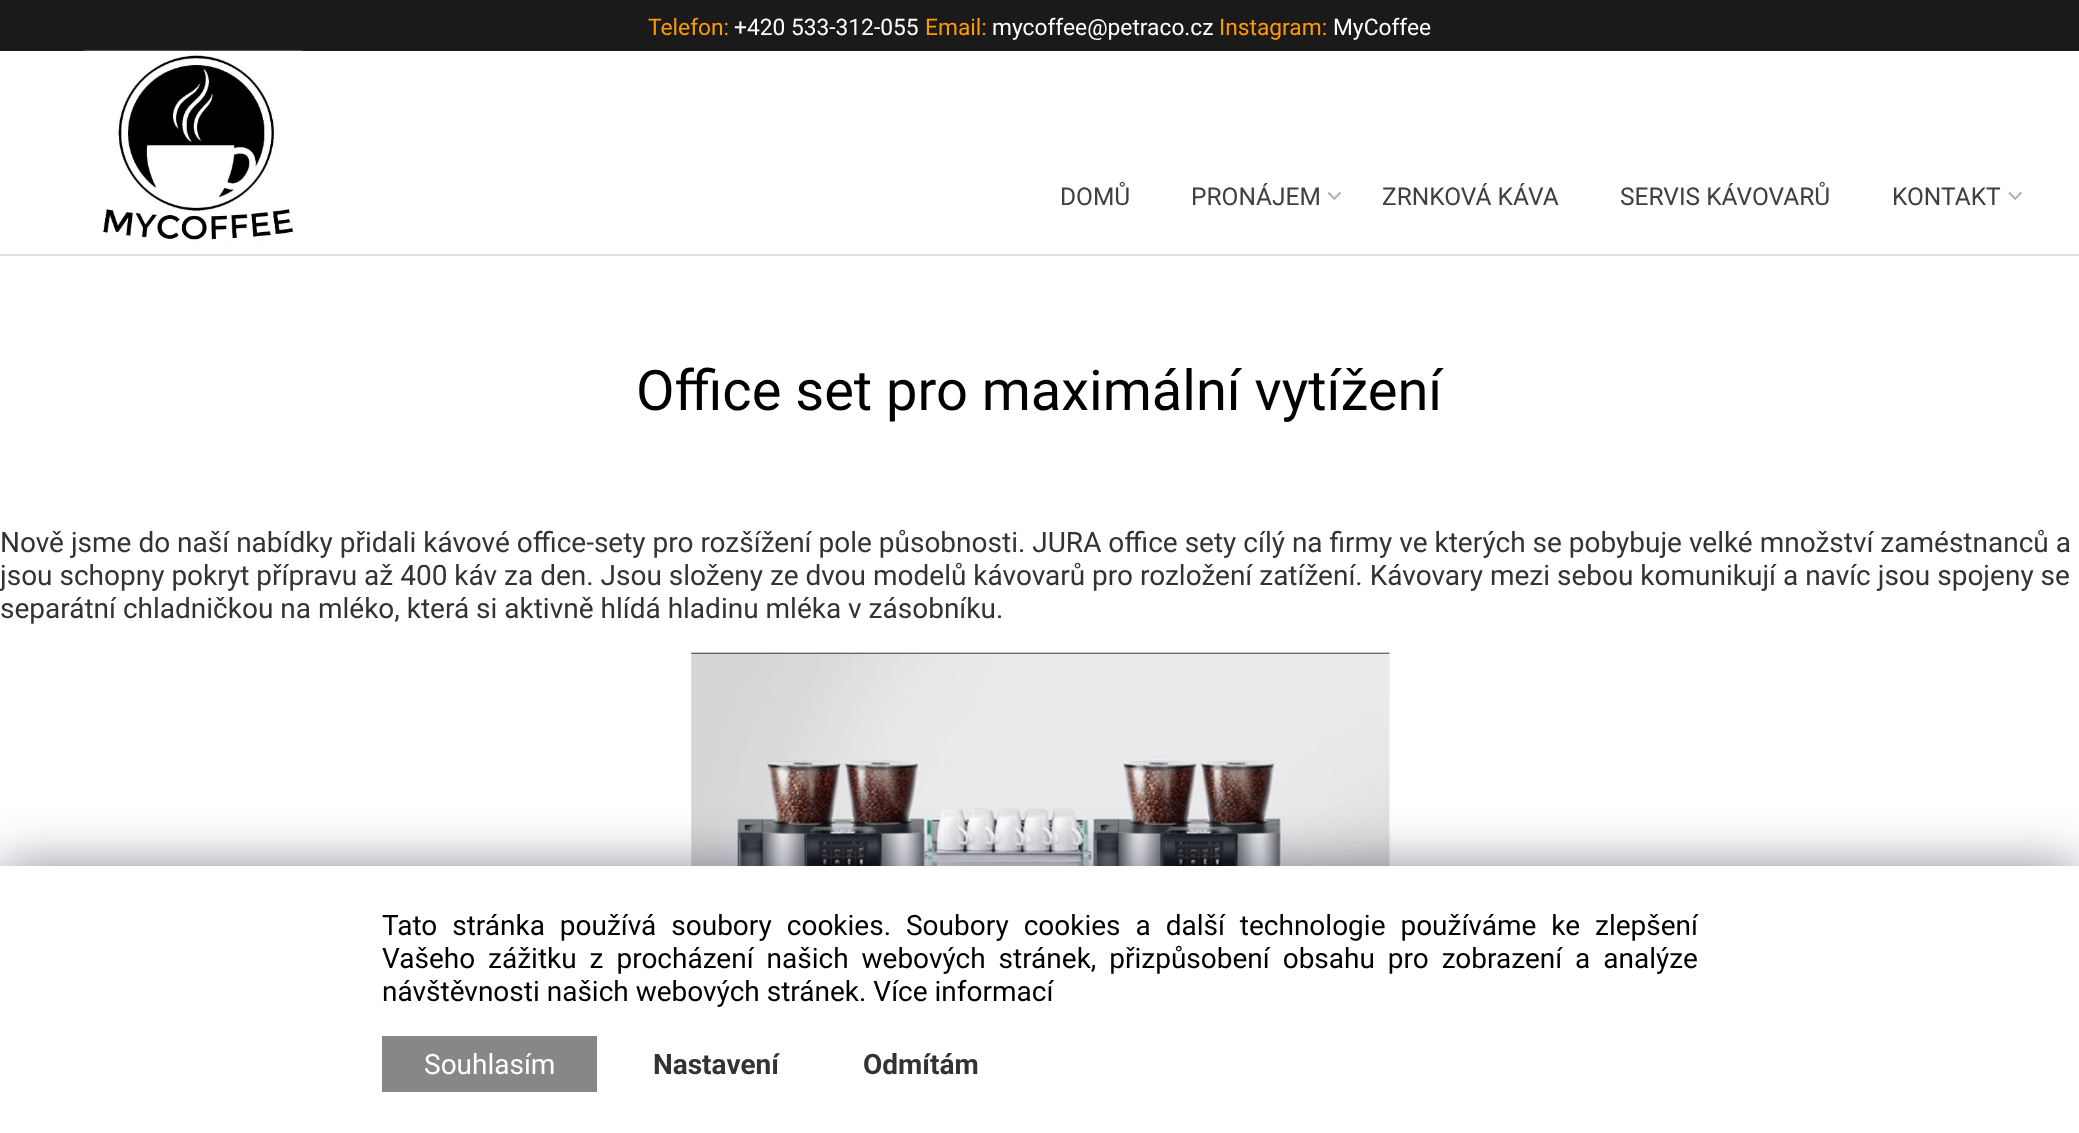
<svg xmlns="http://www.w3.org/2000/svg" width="2079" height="1133">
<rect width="100%" height="100%" fill="#fff"/>
<rect width="2079" height="51" fill="#1a1a1a"/>
<text x="648" y="35" style="font-family:Roboto;font-size:22.75px;fill:#f90">Telefon:</text>
<text x="734" y="35" style="font-family:Roboto;font-size:22.75px;fill:#fff">+420 533-312-055</text>
<text x="925" y="35" style="font-family:Roboto;font-size:22.75px;fill:#f90">Email:</text>
<text x="992" y="35" style="font-family:Roboto;font-size:22.75px;fill:#fff">mycoffee@petraco.cz</text>
<text x="1219" y="35" style="font-family:Roboto;font-size:22.75px;fill:#f90">Instagram:</text>
<text x="1333" y="35" style="font-family:Roboto;font-size:22.75px;fill:#fff">MyCoffee</text>
<image x="83" y="50" width="220" height="193" href="media/1.png"/>
<rect y="254" width="2079" height="2" fill="#e0e0e0"/>
<text x="1060" y="205" style="font-family:Roboto;font-size:24.5px;fill:#404040">DOMŮ</text>
<image x="1327" y="192" width="14" height="8" href="media/2.png"/>
<text x="1191" y="205" style="font-family:Roboto;font-size:24.5px;fill:#404040">PRONÁJEM</text>
<text x="1382" y="205" style="font-family:Roboto;font-size:24.5px;fill:#404040">ZRNKOVÁ KÁVA</text>
<text x="1620" y="205" style="font-family:Roboto;font-size:24.5px;fill:#404040">SERVIS KÁVOVARŮ</text>
<image x="2008" y="192" width="14" height="8" href="media/3.png"/>
<text x="1892" y="205" style="font-family:Roboto;font-size:24.5px;fill:#404040">KONTAKT</text>
<text x="636" y="410" style="font-family:Roboto;font-size:56px;fill:#000">Office set pro maximální vytížení</text>
<text x="0" y="552" style="font-family:Roboto;font-size:28px;fill:#333">Nově jsme do naší nabídky přidali kávové office-sety pro rozšížení pole působnosti. JURA office sety cílý na firmy ve kterých se pobybuje velké množství zaméstnanců a</text>
<text x="0" y="585" style="font-family:Roboto;font-size:28px;fill:#333">jsou schopny pokryt přípravu až 400 káv za den. Jsou složeny ze dvou modelů kávovarů pro rozložení zatížení. Kávovary mezi sebou komunikují a navíc jsou spojeny se</text>
<text x="0" y="618" style="font-family:Roboto;font-size:28px;fill:#333">separátní chladničkou na mléko, která si aktivně hlídá hladinu mléka v zásobníku.</text>
<image x="691" y="652" width="699" height="214" href="media/4.png"/>
<rect y="866" width="2079" height="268" fill="#1b193980" filter="blur(26px)"/>
<rect y="866" width="2079" height="267" fill="#fff"/>
<text x="382" y="935" word-spacing="8" style="font-family:Roboto;font-size:28px;fill:#000">Tato stránka používá soubory cookies. Soubory cookies a další technologie používáme ke zlepšení</text>
<text x="382" y="968" word-spacing="6" style="font-family:Roboto;font-size:28px;fill:#000">Vašeho zážitku z procházení našich webových stránek, přizpůsobení obsahu pro zobrazení a analýze</text>
<text x="382" y="1001" style="font-family:Roboto;font-size:28px;fill:#000">návštěvnosti našich webových stránek. Více informací</text>
<rect x="382" y="1036" width="215" height="56" fill="#878787"/>
<text x="424" y="1074" style="font-family:Roboto;font-size:28px;fill:#fff">Souhlasím</text>
<text x="653" y="1074" style="font-family:Roboto;font-size:28px;font-weight:bold;fill:#333">Nastavení</text>
<text x="863" y="1074" style="font-family:Roboto;font-size:28px;font-weight:bold;fill:#333">Odmítám</text>
</svg>
